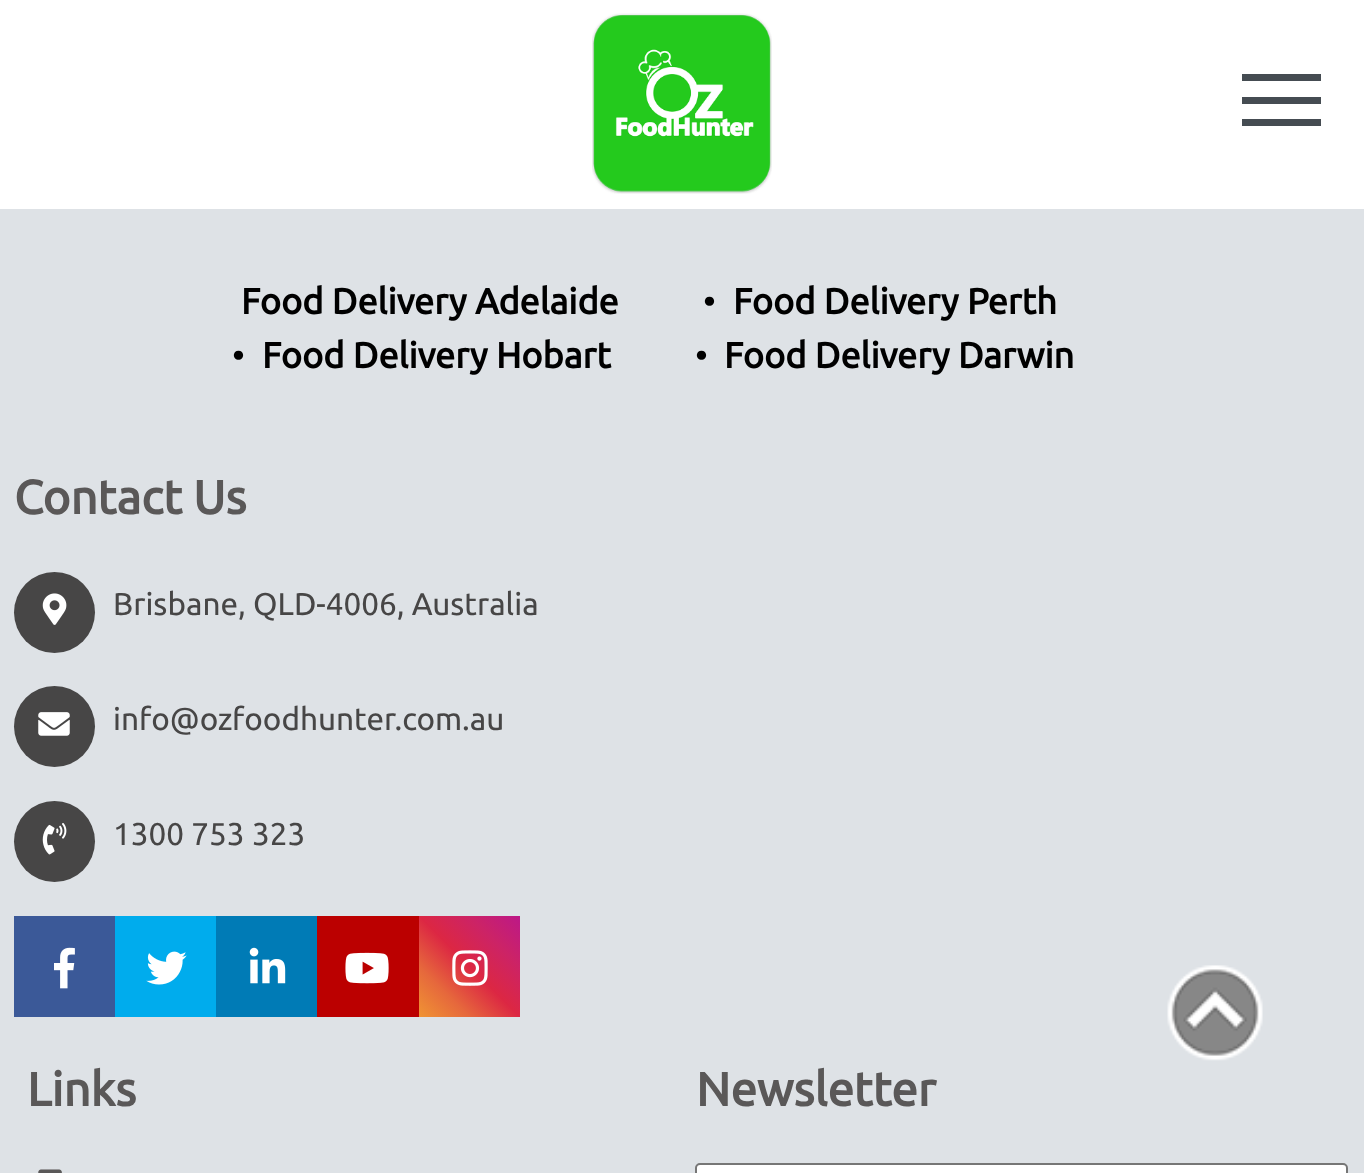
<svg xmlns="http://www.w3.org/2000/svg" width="1364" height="1173">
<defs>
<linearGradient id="g1" gradientUnits="userSpaceOnUse" x1="419" y1="1017" x2="520" y2="916"><stop offset="0" stop-color="#f09433"/><stop offset="0.25" stop-color="#e6683c"/><stop offset="0.5" stop-color="#dc2743"/><stop offset="0.75" stop-color="#cc2366"/><stop offset="1" stop-color="#bc1888"/></linearGradient>
</defs>
<rect width="100%" height="100%" fill="#dee2e6"/>
<rect width="1364" height="209" fill="#fff"/>
<image x="592" y="13" width="180" height="181" href="media/1.png"/>
<rect x="1242" y="97" width="79" height="7" fill="#454c52"/>
<rect x="1242" y="74" width="79" height="7" fill="#454c52"/>
<rect x="1242" y="119" width="79" height="7" fill="#454c52"/>
<text x="241" y="314" style="font-family:Ubuntu;font-size:36px;font-weight:bold;fill:#000">Food Delivery Adelaide</text>
<text x="703" y="314" style="font-family:Ubuntu;font-size:36px;fill:#000">•</text>
<text x="733" y="314" style="font-family:Ubuntu;font-size:36px;font-weight:bold;fill:#000">Food Delivery Perth</text>
<text x="232" y="368" style="font-family:Ubuntu;font-size:36px;fill:#000">•</text>
<text x="262" y="368" style="font-family:Ubuntu;font-size:36px;font-weight:bold;fill:#000">Food Delivery Hobart</text>
<text x="695" y="368" style="font-family:Ubuntu;font-size:36px;fill:#000">•</text>
<text x="724" y="368" style="font-family:Ubuntu;font-size:36px;font-weight:bold;fill:#000">Food Delivery Darwin</text>
<text x="14" y="514" style="font-family:Ubuntu;font-size:47.25px;font-weight:bold;fill:#5a5858">Contact Us</text>
<circle cx="54.5" cy="612.5" r="40.5" fill="#474646"/>
<image x="42" y="593" width="25" height="32" href="media/2.png"/>
<text x="113" y="615" style="font-family:Ubuntu;font-size:31.5px;fill:#474646">Brisbane, QLD-4006, Australia</text>
<circle cx="54.5" cy="726.5" r="40.5" fill="#474646"/>
<image x="38" y="712" width="32" height="24" href="media/3.png"/>
<text x="113" y="730" style="font-family:Ubuntu;font-size:31.5px;fill:#474646">info@ozfoodhunter.com.au</text>
<circle cx="54.5" cy="841.5" r="40.5" fill="#474646"/>
<image x="42" y="823" width="25" height="32" href="media/4.png"/>
<text x="113" y="845" style="font-family:Ubuntu;font-size:31.5px;fill:#474646">1300 753 323</text>
<rect x="14" y="916" width="101" height="101" fill="#3b5998"/>
<image x="54" y="947" width="21" height="42" href="media/5.png"/>
<rect x="115" y="916" width="101" height="101" fill="#00aced"/>
<image x="146" y="951" width="41" height="34" href="media/6.png"/>
<rect x="216" y="916" width="101" height="101" fill="#007bb6"/>
<image x="249" y="947" width="37" height="37" href="media/7.png"/>
<rect x="317" y="916" width="102" height="101" fill="#b00"/>
<image x="345" y="952" width="44" height="32" href="media/8.png"/>
<rect x="419" y="916" width="101" height="101" fill="url(#g1)"/>
<image x="452" y="950" width="36" height="36" href="media/9.png"/>
<text x="27" y="1106" style="font-family:Ubuntu;font-size:47.25px;font-weight:bold;fill:#5a5858">Links</text>
<image x="38" y="1169" width="24" height="4" href="media/10.png"/>
<text x="696" y="1106" style="font-family:Ubuntu;font-size:47.25px;font-weight:bold;fill:#5a5858">Newsletter</text>
<rect x="696" y="1164" width="651" height="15" rx="4" fill="#fff" stroke="#767676" stroke-width="2"/>
<image x="1167" y="965" width="96" height="96" href="media/11.png"/>
</svg>
